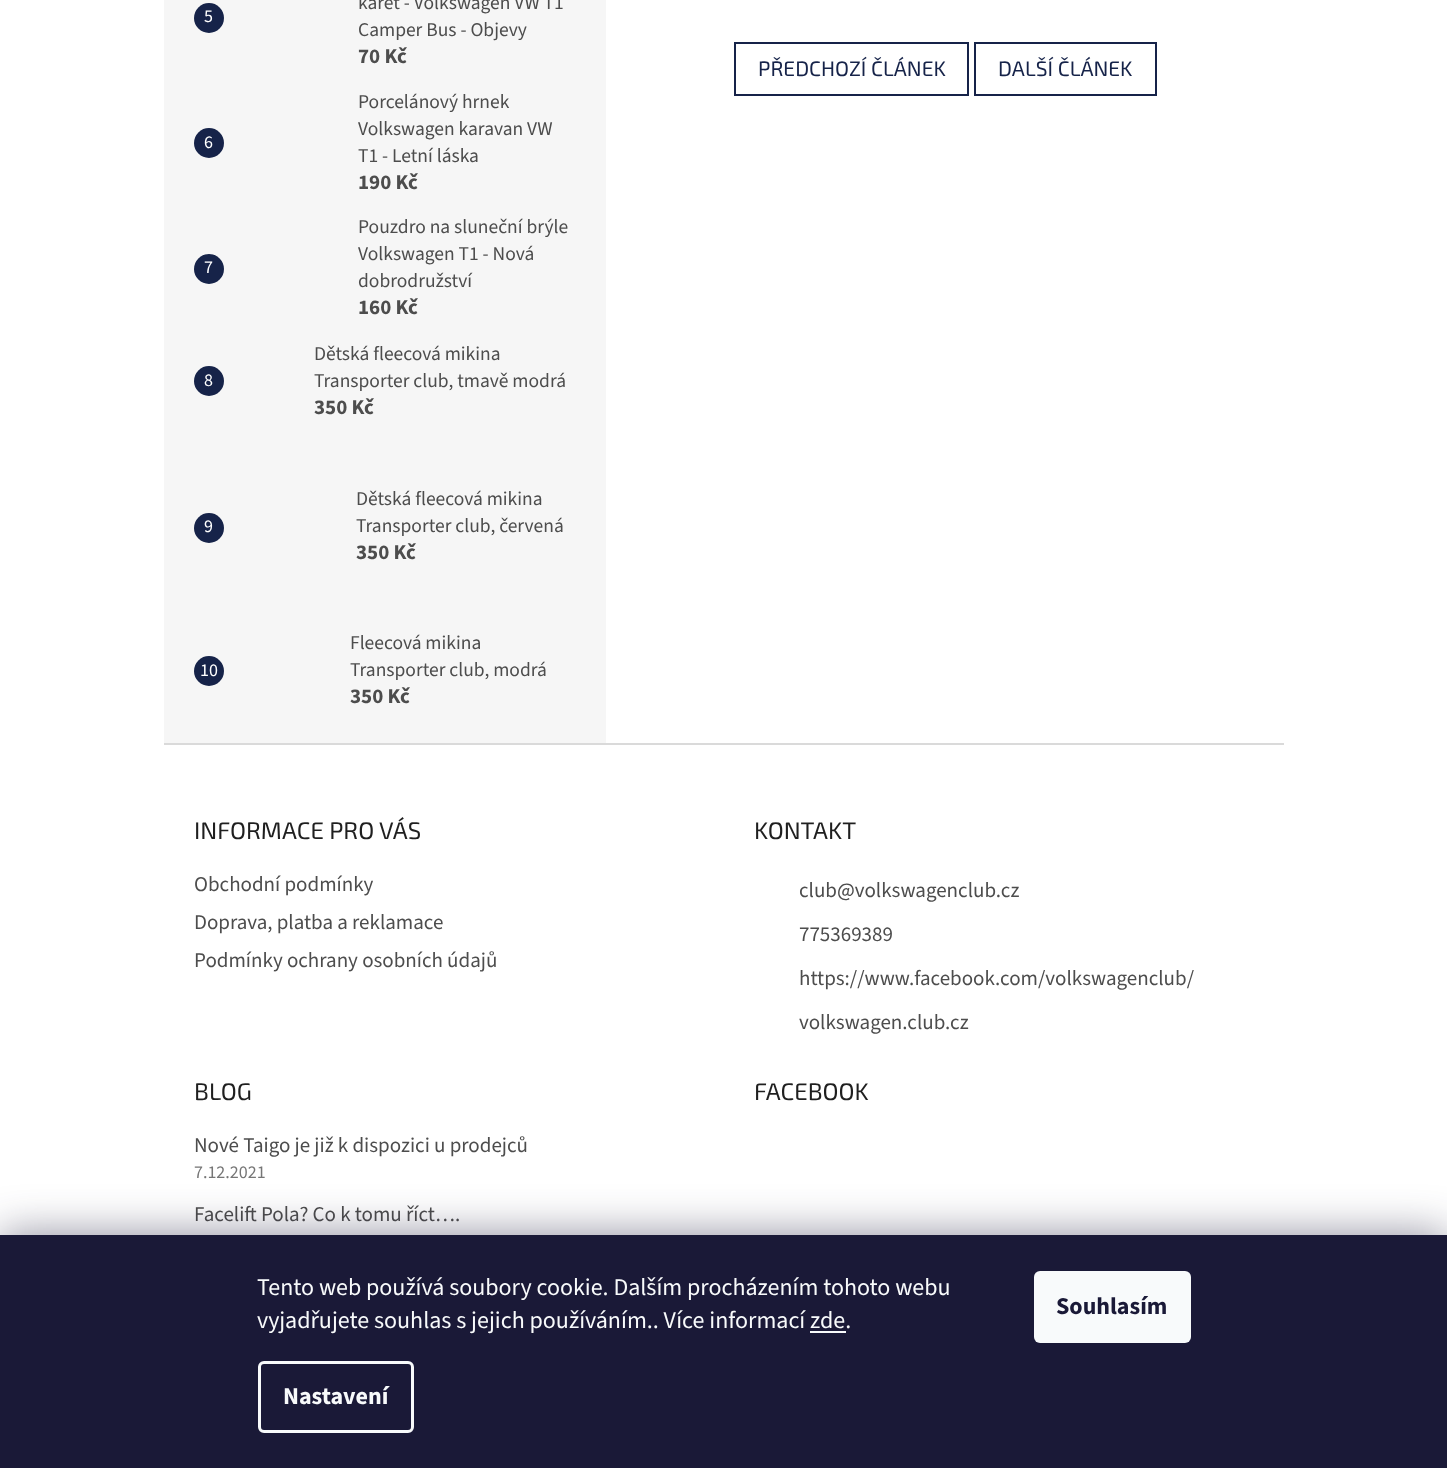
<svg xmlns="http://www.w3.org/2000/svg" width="1447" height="1468">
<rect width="100%" height="100%" fill="#fff"/>
<rect x="164" width="442" height="743" fill="#f6f6f6"/>
<circle cx="209" cy="18" r="15" fill="#162349"/>
<text x="204" y="22" style="font-family:'Source Sans 3';font-size:18px;fill:#fff">5</text>
<text x="358" y="9" style="font-family:'Source Sans 3';font-size:19.5px;fill:#4d4d4d">karet - Volkswagen VW T1</text>
<text x="358" y="36" style="font-family:'Source Sans 3';font-size:19.5px;fill:#4d4d4d">Camper Bus - Objevy</text>
<text x="358" y="63" style="font-family:'Source Sans 3';font-size:21px;font-weight:bold;fill:#4d4d4d">70 Kč</text>
<circle cx="209" cy="143" r="15" fill="#162349"/>
<text x="204" y="148" style="font-family:'Source Sans 3';font-size:18px;fill:#fff">6</text>
<text x="358" y="108" style="font-family:'Source Sans 3';font-size:19.5px;fill:#4d4d4d">Porcelánový hrnek</text>
<text x="358" y="135" style="font-family:'Source Sans 3';font-size:19.5px;fill:#4d4d4d">Volkswagen karavan VW</text>
<text x="358" y="162" style="font-family:'Source Sans 3';font-size:19.5px;fill:#4d4d4d">T1 - Letní láska</text>
<text x="358" y="189" style="font-family:'Source Sans 3';font-size:21px;font-weight:bold;fill:#4d4d4d">190 Kč</text>
<circle cx="209" cy="269" r="15" fill="#162349"/>
<text x="204" y="273" style="font-family:'Source Sans 3';font-size:18px;fill:#fff">7</text>
<text x="358" y="233" style="font-family:'Source Sans 3';font-size:19.5px;fill:#4d4d4d">Pouzdro na sluneční brýle</text>
<text x="358" y="260" style="font-family:'Source Sans 3';font-size:19.5px;fill:#4d4d4d">Volkswagen T1 - Nová</text>
<text x="358" y="287" style="font-family:'Source Sans 3';font-size:19.5px;fill:#4d4d4d">dobrodružství</text>
<text x="358" y="314" style="font-family:'Source Sans 3';font-size:21px;font-weight:bold;fill:#4d4d4d">160 Kč</text>
<circle cx="209" cy="381" r="15" fill="#162349"/>
<text x="204" y="386" style="font-family:'Source Sans 3';font-size:18px;fill:#fff">8</text>
<text x="314" y="360" style="font-family:'Source Sans 3';font-size:19.5px;fill:#4d4d4d">Dětská fleecová mikina</text>
<text x="314" y="387" style="font-family:'Source Sans 3';font-size:19.5px;fill:#4d4d4d">Transporter club, tmavě modrá</text>
<text x="314" y="414" style="font-family:'Source Sans 3';font-size:21px;font-weight:bold;fill:#4d4d4d">350 Kč</text>
<circle cx="209" cy="528" r="15" fill="#162349"/>
<text x="204" y="532" style="font-family:'Source Sans 3';font-size:18px;fill:#fff">9</text>
<text x="356" y="505" style="font-family:'Source Sans 3';font-size:19.5px;fill:#4d4d4d">Dětská fleecová mikina</text>
<text x="356" y="532" style="font-family:'Source Sans 3';font-size:19.5px;fill:#4d4d4d">Transporter club, červená</text>
<text x="356" y="559" style="font-family:'Source Sans 3';font-size:21px;font-weight:bold;fill:#4d4d4d">350 Kč</text>
<circle cx="209" cy="671" r="15" fill="#162349"/>
<text x="200" y="676" style="font-family:'Source Sans 3';font-size:18px;fill:#fff">10</text>
<text x="350" y="649" style="font-family:'Source Sans 3';font-size:19.5px;fill:#4d4d4d">Fleecová mikina</text>
<text x="350" y="676" style="font-family:'Source Sans 3';font-size:19.5px;fill:#4d4d4d">Transporter club, modrá</text>
<text x="350" y="703" style="font-family:'Source Sans 3';font-size:21px;font-weight:bold;fill:#4d4d4d">350 Kč</text>
<rect x="735" y="43" width="233" height="52" fill="none" stroke="#162349" stroke-width="2"/>
<text x="758" y="76" style="font-family:'Exo 2';font-size:21px;fill:#162349">PŘEDCHOZÍ ČLÁNEK</text>
<rect x="975" y="43" width="181" height="52" fill="none" stroke="#162349" stroke-width="2"/>
<text x="998" y="76" style="font-family:'Exo 2';font-size:21px;fill:#162349">DALŠÍ ČLÁNEK</text>
<rect x="164" y="743" width="1120" height="2" fill="#dadada"/>
<text x="194" y="839" style="font-family:'Exo 2';font-size:24px;fill:#1f1f1f">INFORMACE PRO VÁS</text>
<text x="194" y="891" style="font-family:'Source Sans 3';font-size:21px;fill:#4d4d4d">Obchodní podmínky</text>
<text x="194" y="929" style="font-family:'Source Sans 3';font-size:21px;fill:#4d4d4d">Doprava, platba a reklamace</text>
<text x="194" y="967" style="font-family:'Source Sans 3';font-size:21px;fill:#4d4d4d">Podmínky ochrany osobních údajů</text>
<text x="754" y="839" style="font-family:'Exo 2';font-size:24px;fill:#1f1f1f">KONTAKT</text>
<text x="799" y="897" style="font-family:'Source Sans 3';font-size:21px;fill:#4d4d4d">club@volkswagenclub.cz</text>
<text x="799" y="941" style="font-family:'Source Sans 3';font-size:21px;fill:#4d4d4d">775369389</text>
<text x="799" y="985" style="font-family:'Source Sans 3';font-size:21px;fill:#4d4d4d">https://www.facebook.com/volkswagenclub/</text>
<text x="799" y="1029" style="font-family:'Source Sans 3';font-size:21px;fill:#4d4d4d">volkswagen.club.cz</text>
<text x="194" y="1100" style="font-family:'Exo 2';font-size:24px;fill:#1f1f1f">BLOG</text>
<text x="194" y="1152" style="font-family:'Source Sans 3';font-size:21px;fill:#4d4d4d">Nové Taigo je již k dispozici u prodejců</text>
<text x="194" y="1178" style="font-family:'Source Sans 3';font-size:18px;fill:#767676">7.12.2021</text>
<text x="194" y="1221" style="font-family:'Source Sans 3';font-size:21px;fill:#4d4d4d">Facelift Pola? Co k tomu říct….</text>
<text x="754" y="1100" style="font-family:'Exo 2';font-size:24px;fill:#1f1f1f">FACEBOOK</text>
<rect y="1235" width="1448" height="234" fill="#1b193980" filter="blur(22.5px)"/>
<rect y="1235" width="1447" height="233" fill="#1a1937"/>
<text x="257" y="1295" style="font-family:'Source Sans 3';font-size:24px;fill:#f8fafb">Tento web používá soubory cookie. Dalším procházením tohoto webu</text>
<text x="257" y="1328" style="font-family:'Source Sans 3';font-size:24px;fill:#f8fafb">vyjadřujete souhlas s jejich používáním.. Více informací zde.</text>
<rect x="810" y="1331" width="36" height="2" fill="#f8fafb"/>
<rect x="259.5" y="1362.5" width="153" height="69" rx="4.5" fill="none" stroke="#f8fafb" stroke-width="3"/>
<text x="283" y="1404" style="font-family:'Source Sans 3';font-size:24px;font-weight:bold;fill:#f8fafb">Nastavení</text>
<rect x="1034" y="1271" width="157" height="72" rx="6" fill="#f8fafb"/>
<text x="1056" y="1314" style="font-family:'Source Sans 3';font-size:24px;font-weight:bold;fill:#1a1937">Souhlasím</text>
</svg>
